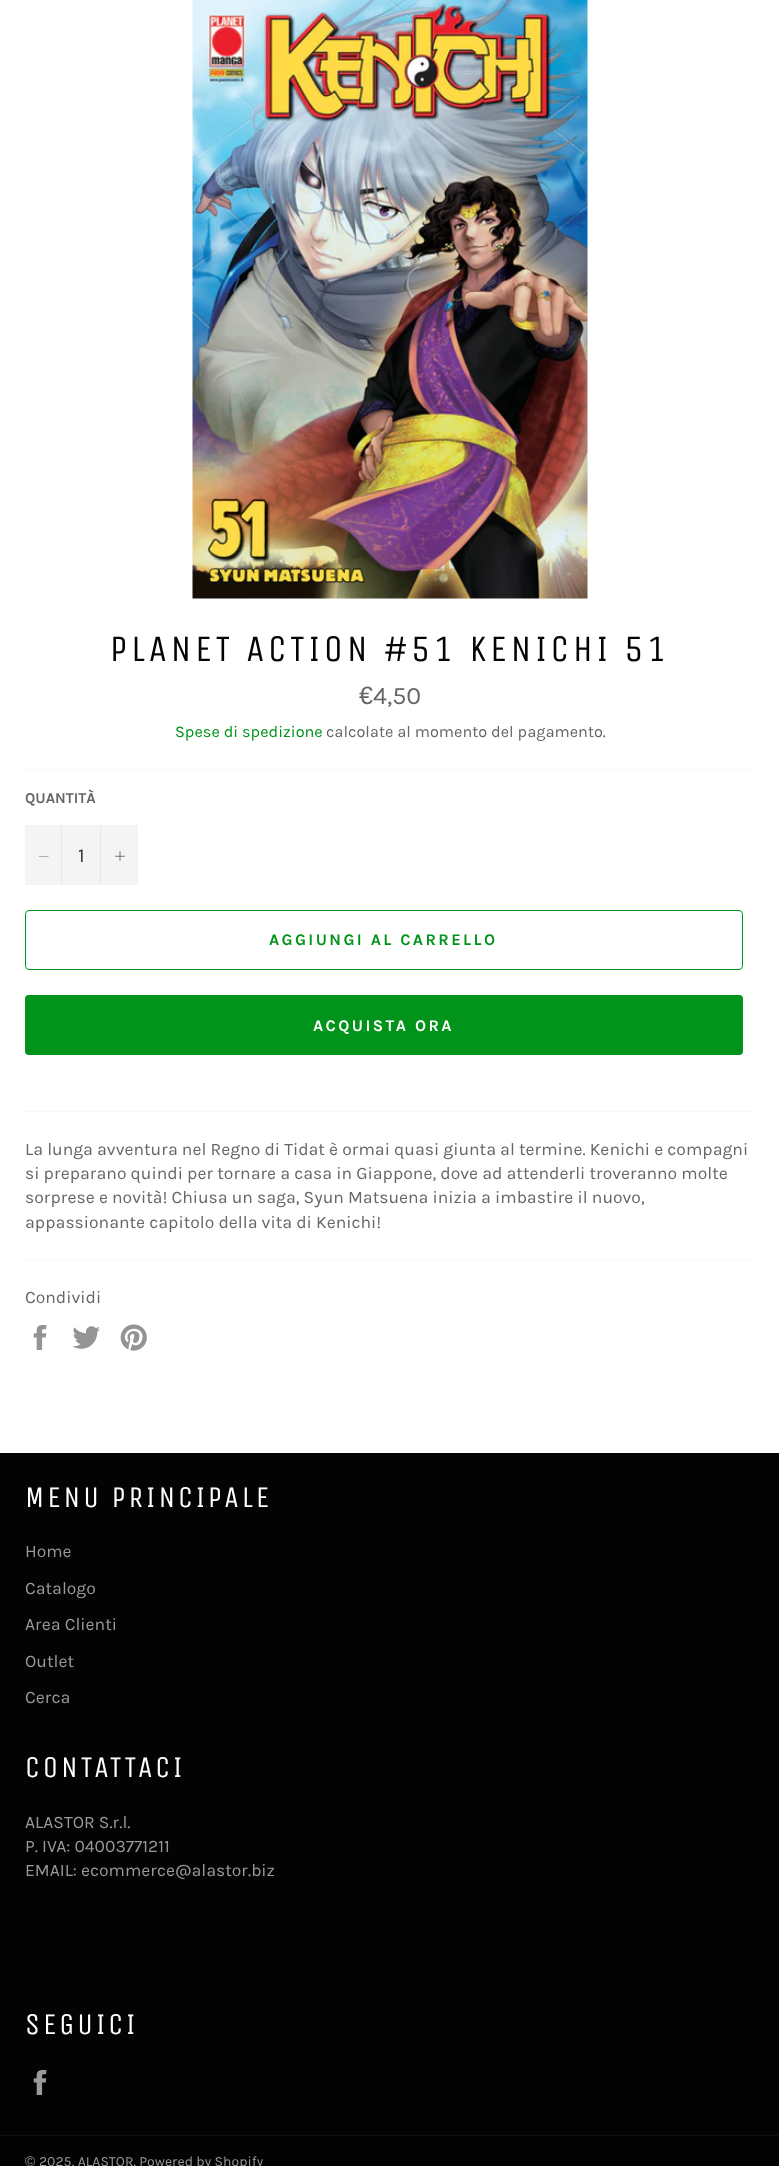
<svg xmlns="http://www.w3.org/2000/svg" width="779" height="2166">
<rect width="100%" height="100%" fill="#fff"/>
<image x="192" y="0" width="396" height="599" href="media/1.png"/>
<text x="110" y="661" style="font-family:Unica One;font-size:37.5px;letter-spacing:3.75px;fill:#030303">PLANET ACTION #51 KENICHI 51</text>
<text x="359" y="704" style="font-family:Liberation Sans;font-size:25px;fill:#666">€</text>
<text x="373" y="704" style="font-family:Karla;font-size:25px;fill:#666">4,50</text>
<text x="175" y="737" style="font-family:Karla;font-size:16.25px;fill:#02941a">Spese di spedizione</text>
<text x="326" y="737" style="font-family:Karla;font-size:16.25px;fill:#666">calcolate al momento del pagamento.</text>
<rect x="25" y="769" width="730" height="1" fill="#f7f7f7"/>
<text x="25" y="803" style="font-family:Karla;font-size:15px;font-weight:bold;fill:#666">QUANTITÀ</text>
<rect x="25" y="825" width="113" height="60" fill="#f4f4f4"/>
<rect x="61" y="825" width="1" height="60" fill="#e7e7e7"/>
<path d="M48.5 856v.5h-9.5v-.5z" fill="#666" fill-rule="evenodd"/>
<text x="78" y="862" style="font-family:Karla;font-size:20px;fill:#333">1</text>
<rect x="100" y="825" width="1" height="60" fill="#e7e7e7"/>
<image x="115" y="851" width="10" height="10" href="media/2.png"/>
<rect x="25.5" y="910.5" width="717" height="59" rx="3.5" fill="none" stroke="#02941a"/>
<text x="269" y="945" style="font-family:Karla;font-size:16.25px;font-weight:bold;letter-spacing:2.4px;fill:#02941a">AGGIUNGI AL CARRELLO</text>
<rect x="25" y="995" width="718" height="60" rx="4" fill="#02941a"/>
<text x="313" y="1031" style="font-family:Karla;font-size:16.25px;font-weight:bold;letter-spacing:2.4px;fill:#fff">ACQUISTA ORA</text>
<rect x="25" y="1111" width="730" height="1" fill="#f7f7f7"/>
<text x="25" y="1155" style="font-family:Karla;font-size:17.5px;fill:#666">La lunga avventura nel Regno di Tidat è ormai quasi giunta al termine. Kenichi e compagni</text>
<text x="25" y="1179" style="font-family:Karla;font-size:17.5px;fill:#666">si preparano quindi per tornare a casa in Giappone, dove ad attenderli troveranno molte</text>
<text x="25" y="1203" style="font-family:Karla;font-size:17.5px;fill:#666">sorprese e novità! Chiusa un saga, Syun Matsuena inizia a imbastire il nuovo,</text>
<text x="25" y="1228" style="font-family:Karla;font-size:17.5px;fill:#666">appassionante capitolo della vita di Kenichi!</text>
<rect x="25" y="1259" width="730" height="1" fill="#f7f7f7"/>
<text x="25" y="1303" style="font-family:Karla;font-size:17.5px;fill:#666">Condividi</text>
<image x="33" y="1325" width="14" height="25" href="media/3.png"/>
<image x="72" y="1326" width="28" height="23" href="media/4.png"/>
<image x="120" y="1324" width="27" height="27" href="media/5.png"/>
<rect y="1453" width="779" height="713" fill="#030303"/>
<text x="25" y="1507" style="font-family:Unica One;font-size:30px;letter-spacing:3px;fill:#fff">MENU PRINCIPALE</text>
<text x="25" y="1557" style="font-family:Karla;font-size:17.5px;fill:#9a9a9a">Home</text>
<text x="25" y="1594" style="font-family:Karla;font-size:17.5px;fill:#9a9a9a">Catalogo</text>
<text x="25" y="1630" style="font-family:Karla;font-size:17.5px;fill:#9a9a9a">Area Clienti</text>
<text x="25" y="1667" style="font-family:Karla;font-size:17.5px;fill:#9a9a9a">Outlet</text>
<text x="25" y="1703" style="font-family:Karla;font-size:17.5px;fill:#9a9a9a">Cerca</text>
<text x="25" y="1777" style="font-family:Unica One;font-size:30px;letter-spacing:3px;fill:#fff">CONTATTACI</text>
<text x="25" y="1828" style="font-family:Karla;font-size:17.5px;fill:#9a9a9a">ALASTOR S.r.l.</text>
<text x="25" y="1852" style="font-family:Karla;font-size:17.5px;fill:#9a9a9a">P. IVA: 04003771211</text>
<text x="25" y="1876" style="font-family:Karla;font-size:17.5px;fill:#9a9a9a">EMAIL: ecommerce@alastor.biz</text>
<text x="25" y="2034" style="font-family:Unica One;font-size:30px;letter-spacing:3px;fill:#fff">SEGUICI</text>
<image x="33" y="2070" width="14" height="25" href="media/6.png"/>
<rect y="2135" width="779" height="1" fill="#101010"/>
<text x="25" y="2166" style="font-family:Liberation Sans;font-size:14px;fill:#9a9a9a">©</text>
<text x="39" y="2166" style="font-family:Karla;font-size:14px;fill:#9a9a9a">2025, ALASTOR. Powered by Shopify</text>
</svg>
